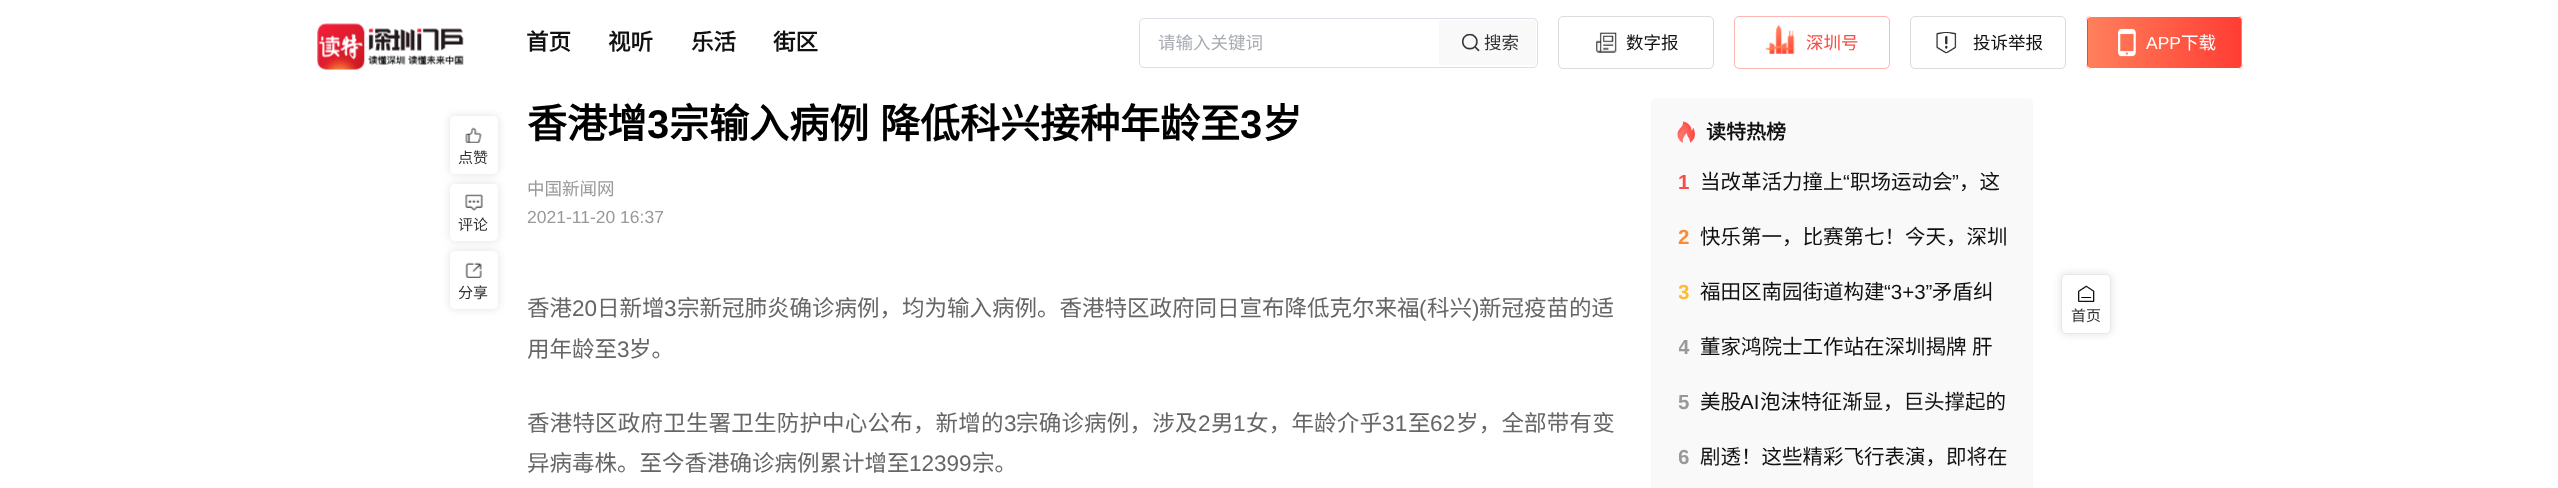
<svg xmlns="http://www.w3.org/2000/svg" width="2558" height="488">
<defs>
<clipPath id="clip1"><rect x="2086" y="16" width="157" height="53" rx="5"/></clipPath>
<linearGradient id="g1" gradientUnits="userSpaceOnUse" x1="1934" y1="43" x2="2088" y2="42"><stop offset="0" stop-color="#ff805c"/><stop offset="1" stop-color="#ff3d33"/></linearGradient>
<linearGradient id="g2" gradientUnits="userSpaceOnUse" x1="2088" y1="43" x2="2241" y2="42"><stop offset="0" stop-color="#ff805c"/><stop offset="1" stop-color="#ff3d33"/></linearGradient>
<linearGradient id="g3" gradientUnits="userSpaceOnUse" x1="2241" y1="43" x2="2395" y2="42"><stop offset="0" stop-color="#ff805c"/><stop offset="1" stop-color="#ff3d33"/></linearGradient>
<clipPath id="clip2"><rect x="1679" y="279" width="334" height="25"/></clipPath>
<clipPath id="clip3"><rect x="1679" y="334" width="334" height="25"/></clipPath>
<clipPath id="clip4"><rect x="1679" y="444" width="334" height="25"/></clipPath>
</defs>
<rect width="100%" height="100%" fill="#fff"/>
<image x="317" y="23" width="147" height="47" href="media/1.png"/>
<text x="526" y="50" style="font-family:Noto Sans CJK SC;font-size:22.5px;font-weight:bold;fill:#111">首页</text>
<text x="608" y="50" style="font-family:Noto Sans CJK SC;font-size:22.5px;font-weight:bold;fill:#111">视听</text>
<text x="691" y="50" style="font-family:Noto Sans CJK SC;font-size:22.5px;font-weight:bold;fill:#111">乐活</text>
<text x="773" y="50" style="font-family:Noto Sans CJK SC;font-size:22.5px;font-weight:bold;fill:#111">街区</text>
<rect x="1139.5" y="18.5" width="398" height="49" rx="4.5" fill="none" stroke="#dcdfe6"/>
<text x="1158" y="49" style="font-family:Noto Sans CJK SC;font-size:17.5px;fill:#a8abb2">请输入关键词</text>
<rect x="1439" y="20" width="97" height="45" fill="#f9f9f9"/>
<image x="1462" y="33" width="18" height="19" href="media/2.png"/>
<text x="1484" y="49" style="font-family:Noto Sans CJK SC;font-size:17.5px;fill:#333">搜索</text>
<rect x="1558.5" y="16.5" width="155" height="52" rx="4.5" fill="none" stroke="#dbdbdb"/>
<image x="1596" y="32" width="21" height="21" href="media/3.png"/>
<text x="1626" y="49" style="font-family:Noto Sans CJK SC;font-size:17.5px;fill:#111">数字报</text>
<rect x="1734.5" y="16.5" width="155" height="52" rx="4.5" fill="none" stroke="#fcb7b2"/>
<image x="1765" y="24" width="30" height="30" href="media/4.png"/>
<text x="1806" y="49" style="font-family:Noto Sans CJK SC;font-size:17.5px;fill:#f64e45">深圳号</text>
<rect x="1910.5" y="16.5" width="155" height="52" rx="4.5" fill="none" stroke="#dbdbdb"/>
<image x="1936" y="32" width="21" height="22" href="media/5.png"/>
<text x="1973" y="49" style="font-family:Noto Sans CJK SC;font-size:17.5px;fill:#111">投诉举报</text>
<g clip-path="url(#clip1)">
<rect x="2086" y="16" width="2" height="53" fill="url(#g1)"/>
<rect x="2088" y="16" width="153" height="53" fill="url(#g2)"/>
<rect x="2241" y="16" width="2" height="53" fill="url(#g3)"/>
</g>
<rect x="2086.5" y="16.5" width="156" height="52" rx="4.5" fill="none" stroke="#fff"/>
<image x="2118" y="28" width="18" height="29" href="media/6.png"/>
<text x="2146" y="49" style="font-family:Liberation Sans;font-size:17.5px;fill:#fff">APP</text>
<text x="2181" y="49" style="font-family:Noto Sans CJK SC;font-size:17.5px;fill:#fff">下载</text>
<text x="527" y="138" style="font-family:Noto Sans CJK SC;font-size:40px;font-weight:bold;fill:#000">香港增</text>
<text x="647" y="138" style="font-family:Liberation Sans;font-size:40px;font-weight:bold;fill:#000">3</text>
<text x="669" y="138" word-spacing="2" style="font-family:Noto Sans CJK SC;font-size:40px;font-weight:bold;fill:#000">宗输入病例 降低科兴接种年龄至</text>
<text x="1240" y="138" style="font-family:Liberation Sans;font-size:40px;font-weight:bold;fill:#000">3</text>
<text x="1262" y="138" style="font-family:Noto Sans CJK SC;font-size:40px;font-weight:bold;fill:#000">岁</text>
<rect x="450" y="116" width="48" height="58" rx="5" fill="#0000001f" filter="blur(4px)"/>
<rect x="450" y="116" width="48" height="58" rx="5" fill="#fff"/>
<image x="465" y="127" width="17" height="16" href="media/7.png"/>
<text x="458" y="163" style="font-family:Noto Sans CJK SC;font-size:15px;fill:#333">点赞</text>
<rect x="450" y="184" width="48" height="57" rx="5" fill="#0000001f" filter="blur(4px)"/>
<rect x="450" y="184" width="48" height="57" rx="5" fill="#fff"/>
<image x="465" y="194" width="18" height="17" href="media/8.png"/>
<text x="458" y="230" style="font-family:Noto Sans CJK SC;font-size:15px;fill:#333">评论</text>
<rect x="450" y="251" width="48" height="58" rx="5" fill="#0000001f" filter="blur(4px)"/>
<rect x="450" y="251" width="48" height="58" rx="5" fill="#fff"/>
<image x="465" y="262" width="17" height="16" href="media/9.png"/>
<text x="458" y="298" style="font-family:Noto Sans CJK SC;font-size:15px;fill:#333">分享</text>
<text x="527" y="195" style="font-family:Noto Sans CJK SC;font-size:17.5px;fill:#999">中国新闻网</text>
<text x="527" y="223" style="font-family:Liberation Sans;font-size:17.5px;fill:#999">2021-11-20 16:37</text>
<text x="527" y="316" style="font-family:Noto Sans CJK SC;font-size:22.5px;fill:#666">香港</text>
<text x="572" y="316" style="font-family:Liberation Sans;font-size:22.5px;fill:#666">20</text>
<text x="597" y="316" style="font-family:Noto Sans CJK SC;font-size:22.5px;fill:#666">日新增</text>
<text x="664" y="316" style="font-family:Liberation Sans;font-size:22.5px;fill:#666">3</text>
<text x="677" y="316" style="font-family:Noto Sans CJK SC;font-size:22.5px;fill:#666">宗新冠肺炎确诊病例，均为输入病例。香港特区政府同日宣布降低克尔来福</text>
<text x="1419" y="316" style="font-family:Liberation Sans;font-size:22.5px;fill:#666">(</text>
<text x="1427" y="316" style="font-family:Noto Sans CJK SC;font-size:22.5px;fill:#666">科兴</text>
<text x="1472" y="316" style="font-family:Liberation Sans;font-size:22.5px;fill:#666">)</text>
<text x="1479" y="316" style="font-family:Noto Sans CJK SC;font-size:22.5px;fill:#666">新冠疫苗的适</text>
<text x="527" y="357" style="font-family:Noto Sans CJK SC;font-size:22.5px;fill:#666">用年龄至</text>
<text x="617" y="357" style="font-family:Liberation Sans;font-size:22.5px;fill:#666">3</text>
<text x="629" y="357" style="font-family:Noto Sans CJK SC;font-size:22.5px;fill:#666">岁。</text>
<text x="527" y="431" style="font-family:Noto Sans CJK SC;font-size:22.5px;letter-spacing:0.2px;fill:#666">香港特区政府卫生署卫生防护中心公布，新增的</text>
<text x="1004" y="431" style="font-family:Liberation Sans;font-size:22.5px;letter-spacing:0.2px;fill:#666">3</text>
<text x="1016" y="431" style="font-family:Noto Sans CJK SC;font-size:22.5px;letter-spacing:0.2px;fill:#666">宗确诊病例，涉及</text>
<text x="1198" y="431" style="font-family:Liberation Sans;font-size:22.5px;letter-spacing:0.2px;fill:#666">2</text>
<text x="1211" y="431" style="font-family:Noto Sans CJK SC;font-size:22.5px;letter-spacing:0.2px;fill:#666">男</text>
<text x="1233" y="431" style="font-family:Liberation Sans;font-size:22.5px;letter-spacing:0.2px;fill:#666">1</text>
<text x="1246" y="431" style="font-family:Noto Sans CJK SC;font-size:22.5px;letter-spacing:0.2px;fill:#666">女，年龄介乎</text>
<text x="1382" y="431" style="font-family:Liberation Sans;font-size:22.5px;letter-spacing:0.2px;fill:#666">31</text>
<text x="1408" y="431" style="font-family:Noto Sans CJK SC;font-size:22.5px;letter-spacing:0.2px;fill:#666">至</text>
<text x="1430" y="431" style="font-family:Liberation Sans;font-size:22.5px;letter-spacing:0.2px;fill:#666">62</text>
<text x="1456" y="431" style="font-family:Noto Sans CJK SC;font-size:22.5px;letter-spacing:0.2px;fill:#666">岁，全部带有变</text>
<text x="527" y="471" style="font-family:Noto Sans CJK SC;font-size:22.5px;fill:#666">异病毒株。至今香港确诊病例累计增至</text>
<text x="909" y="471" style="font-family:Liberation Sans;font-size:22.5px;fill:#666">12399</text>
<text x="972" y="471" style="font-family:Noto Sans CJK SC;font-size:22.5px;fill:#666">宗。</text>
<rect x="1651" y="98" width="382" height="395" rx="5" fill="#f9f9f9"/>
<image x="1677" y="121" width="18" height="22" href="media/10.png"/>
<text x="1706" y="139" style="font-family:Noto Sans CJK SC;font-size:20px;font-weight:bold;fill:#111">读特热榜</text>
<text x="1678" y="189" style="font-family:Liberation Sans;font-size:20.5px;font-weight:bold;fill:#f64e45">1</text>
<text x="1700" y="189" style="font-family:Noto Sans CJK SC;font-size:20.5px;fill:#111">当改革活力撞上</text>
<text x="1843" y="189" style="font-family:Liberation Sans;font-size:20.5px;fill:#111">“</text>
<text x="1850" y="189" style="font-family:Noto Sans CJK SC;font-size:20.5px;fill:#111">职场运动会</text>
<text x="1952" y="189" style="font-family:Liberation Sans;font-size:20.5px;fill:#111">”</text>
<text x="1959" y="189" style="font-family:Noto Sans CJK SC;font-size:20.5px;fill:#111">，这</text>
<text x="1678" y="244" style="font-family:Liberation Sans;font-size:20.5px;font-weight:bold;fill:#ff8a35">2</text>
<text x="1700" y="244" style="font-family:Noto Sans CJK SC;font-size:20.5px;fill:#111">快乐第一，比赛第七！今天，深圳</text>
<g clip-path="url(#clip2)">
<text x="1678" y="299" style="font-family:Liberation Sans;font-size:20.5px;font-weight:bold;fill:#ffba35">3</text>
</g>
<text x="1700" y="299" style="font-family:Noto Sans CJK SC;font-size:20.5px;fill:#111">福田区南园街道构建</text>
<text x="1884" y="299" style="font-family:Liberation Sans;font-size:20.5px;fill:#111">“3+3”</text>
<text x="1932" y="299" style="font-family:Noto Sans CJK SC;font-size:20.5px;fill:#111">矛盾纠</text>
<g clip-path="url(#clip3)">
<text x="1678" y="354" style="font-family:Liberation Sans;font-size:20.5px;font-weight:bold;fill:#999">4</text>
</g>
<text x="1700" y="354" word-spacing="1" style="font-family:Noto Sans CJK SC;font-size:20.5px;fill:#111">董家鸿院士工作站在深圳揭牌 肝</text>
<text x="1678" y="409" style="font-family:Liberation Sans;font-size:20.5px;font-weight:bold;fill:#999">5</text>
<text x="1700" y="409" style="font-family:Noto Sans CJK SC;font-size:20.5px;fill:#111">美股</text>
<text x="1740" y="409" style="font-family:Liberation Sans;font-size:20.5px;fill:#111">AI</text>
<text x="1760" y="409" style="font-family:Noto Sans CJK SC;font-size:20.5px;fill:#111">泡沫特征渐显，巨头撑起的</text>
<g clip-path="url(#clip4)">
<text x="1678" y="464" style="font-family:Liberation Sans;font-size:20.5px;font-weight:bold;fill:#999">6</text>
</g>
<text x="1700" y="464" style="font-family:Noto Sans CJK SC;font-size:20.5px;fill:#111">剧透！这些精彩飞行表演，即将在</text>
<rect x="2061" y="274" width="50" height="60" rx="5" fill="#0000001f" filter="blur(4px)"/>
<rect x="2061.5" y="274.5" width="49" height="59" rx="4.5" fill="#fff" stroke="#e8e8e8"/>
<image x="2078" y="285" width="17" height="17" href="media/11.png"/>
<text x="2071" y="321" style="font-family:Noto Sans CJK SC;font-size:15px;fill:#333">首页</text>
</svg>
